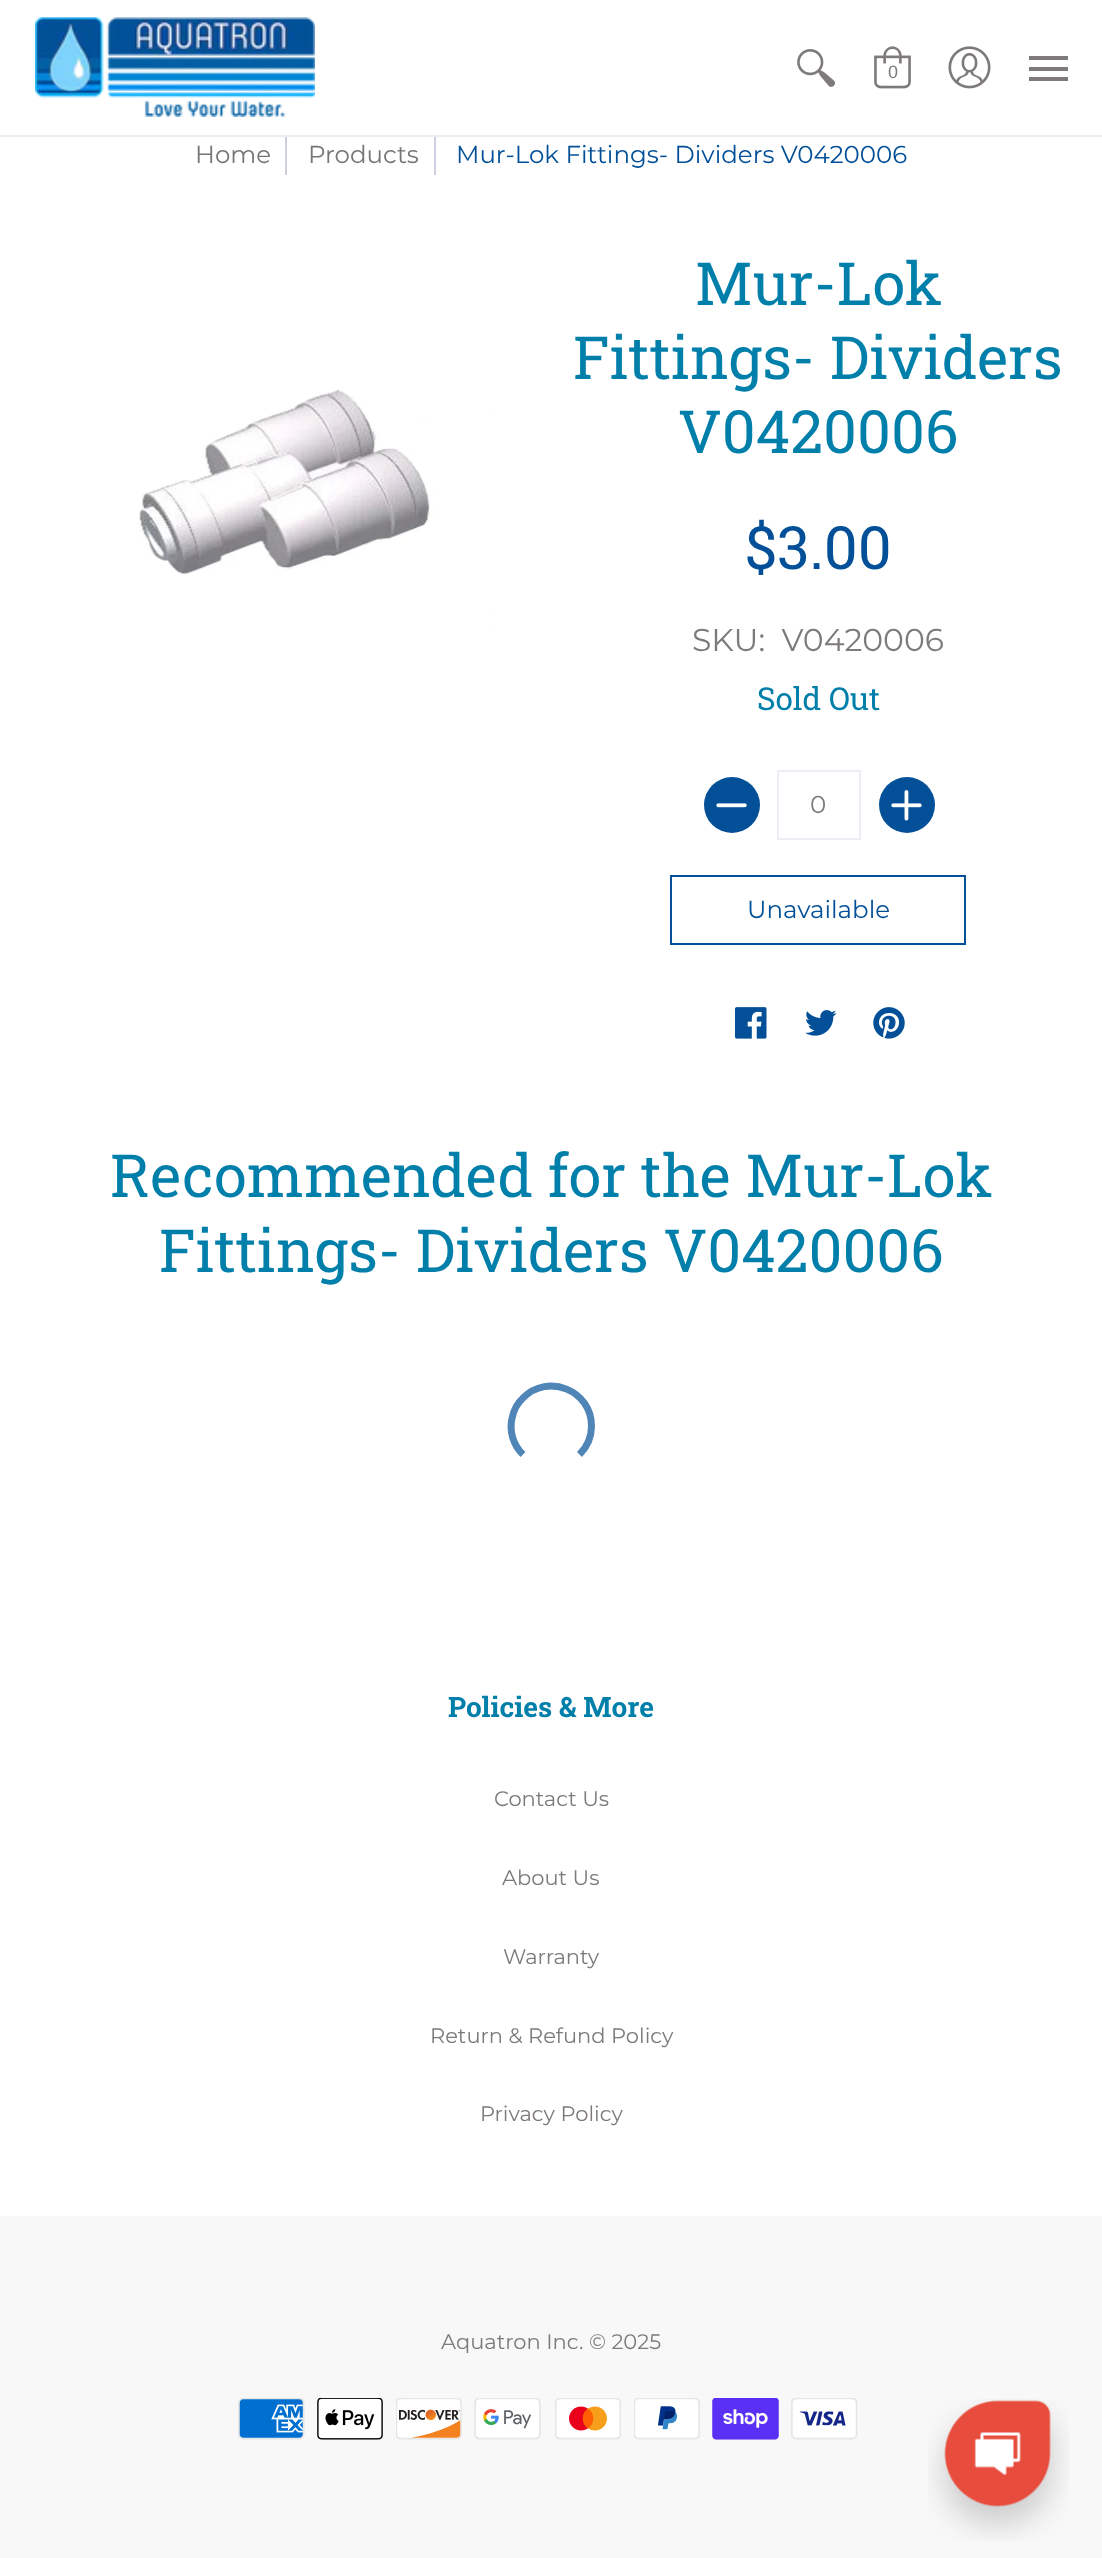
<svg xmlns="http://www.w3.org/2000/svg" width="1102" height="2558">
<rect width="100%" height="100%" fill="#fff"/>
<rect x="285" y="133" width="2" height="42" fill="#cdd0e1"/>
<rect x="434" y="133" width="2" height="42" fill="#cdd0e1"/>
<rect y="135" width="1102" height="2" fill="#edeef4"/>
<rect x="285" y="133" width="151" height="2" fill="#fff"/>
<image x="35" y="17" width="280" height="100" href="media/1.png"/>
<image x="797" y="49" width="38" height="38" href="media/2.png"/>
<image x="874" y="46" width="37" height="43" href="media/3.png"/>
<text x="888" y="78" style="font-family:Liberation Sans;font-size:18px;fill:#7e7a7a">0</text>
<image x="948" y="46" width="43" height="43" href="media/4.png"/>
<rect x="1029" y="56" width="39" height="4" fill="#7e7a7a"/>
<rect x="1029" y="77" width="39" height="4" fill="#7e7a7a"/>
<rect x="1029" y="67" width="39" height="4" fill="#7e7a7a"/>
<text x="195" y="163" style="font-family:Montserrat;font-size:24.5px;fill:#767676">Home</text>
<text x="308" y="163" style="font-family:Montserrat;font-size:24.5px;fill:#767676">Products</text>
<text x="456" y="163" style="font-family:Montserrat;font-size:24.5px;fill:#035098">Mur-Lok Fittings- Dividers V0420006</text>
<image x="139" y="389" width="355" height="236" href="media/5.png"/>
<text x="695" y="305" style="font-family:Roboto Slab;font-size:59.5px;fill:#007faa">Mur-Lok</text>
<text x="573" y="379" style="font-family:Roboto Slab;font-size:59.5px;fill:#007faa">Fittings- Dividers</text>
<text x="678" y="453" style="font-family:Roboto Slab;font-size:59.5px;fill:#007faa">V0420006</text>
<text x="745" y="569" style="font-family:Roboto Slab;font-size:59.5px;fill:#035098">$3.00</text>
<text x="692" y="651" style="font-family:Montserrat;font-size:31.5px;fill:#7e7a7a" xml:space="preserve">SKU:  V0420006</text>
<text x="757" y="710" style="font-family:Roboto Slab;font-size:31.5px;fill:#007faa">Sold Out</text>
<circle cx="732" cy="805" r="28" fill="#035098"/>
<image x="716" y="803" width="31" height="5" href="media/6.png"/>
<rect x="778" y="771" width="82" height="68" fill="none" stroke="#edeef4" stroke-width="2"/>
<text x="810" y="813" style="font-family:Montserrat;font-size:24.5px;fill:#7e7a7a">0</text>
<circle cx="907" cy="805" r="28" fill="#035098"/>
<image x="891" y="790" width="31" height="31" href="media/7.png"/>
<rect x="671" y="876" width="294" height="68" fill="none" stroke="#035098" stroke-width="2"/>
<text x="747" y="918" style="font-family:Montserrat;font-size:24.5px;fill:#035098">Unavailable</text>
<image x="735" y="1007" width="32" height="32" href="media/8.png"/>
<image x="805" y="1010" width="32" height="26" href="media/9.png"/>
<image x="873" y="1007" width="32" height="32" href="media/10.png"/>
<text x="110" y="1197" style="font-family:Roboto Slab;font-size:59.5px;fill:#007faa">Recommended for the Mur-Lok</text>
<text x="159" y="1272" style="font-family:Roboto Slab;font-size:59.5px;fill:#007faa">Fittings- Dividers V0420006</text>
<path d="M523 1454.5c-9.5-9-14-23-11-36c1.5-8 5-15 11-20.5c25-25.5 68.5-7.5 68.5 28c0 11-4.5 21-12 28.5" fill="none" stroke="#4f85b7" stroke-width="7"/>
<text x="448" y="1717" style="font-family:Roboto Slab;font-size:28px;font-weight:bold;fill:#007faa">Policies &amp; More</text>
<text x="494" y="1806" style="font-family:Montserrat;font-size:21px;fill:#7e7a7a">Contact Us</text>
<text x="502" y="1885" style="font-family:Montserrat;font-size:21px;fill:#7e7a7a">About Us</text>
<text x="503" y="1964" style="font-family:Montserrat;font-size:21px;fill:#7e7a7a">Warranty</text>
<text x="430" y="2043" style="font-family:Montserrat;font-size:21px;fill:#7e7a7a">Return &amp; Refund Policy</text>
<text x="480" y="2121" style="font-family:Montserrat;font-size:21px;fill:#7e7a7a">Privacy Policy</text>
<rect y="2216" width="1102" height="342" fill="#f8f8f8"/>
<text x="441" y="2349" style="font-family:Montserrat;font-size:21px;fill:#7e7a7a">Aquatron Inc. © 2025</text>
<image x="238" y="2398" width="67" height="42" href="media/11.png"/>
<image x="317" y="2398" width="66" height="42" href="media/12.png"/>
<image x="396" y="2398" width="66" height="42" href="media/13.png"/>
<image x="474" y="2398" width="67" height="42" href="media/14.png"/>
<image x="555" y="2398" width="66" height="42" href="media/15.png"/>
<image x="634" y="2398" width="66" height="42" href="media/16.png"/>
<image x="712" y="2398" width="67" height="42" href="media/17.png"/>
<image x="791" y="2398" width="67" height="42" href="media/18.png"/>
<image x="928" y="2399" width="141" height="142" href="media/19.png"/>
</svg>
